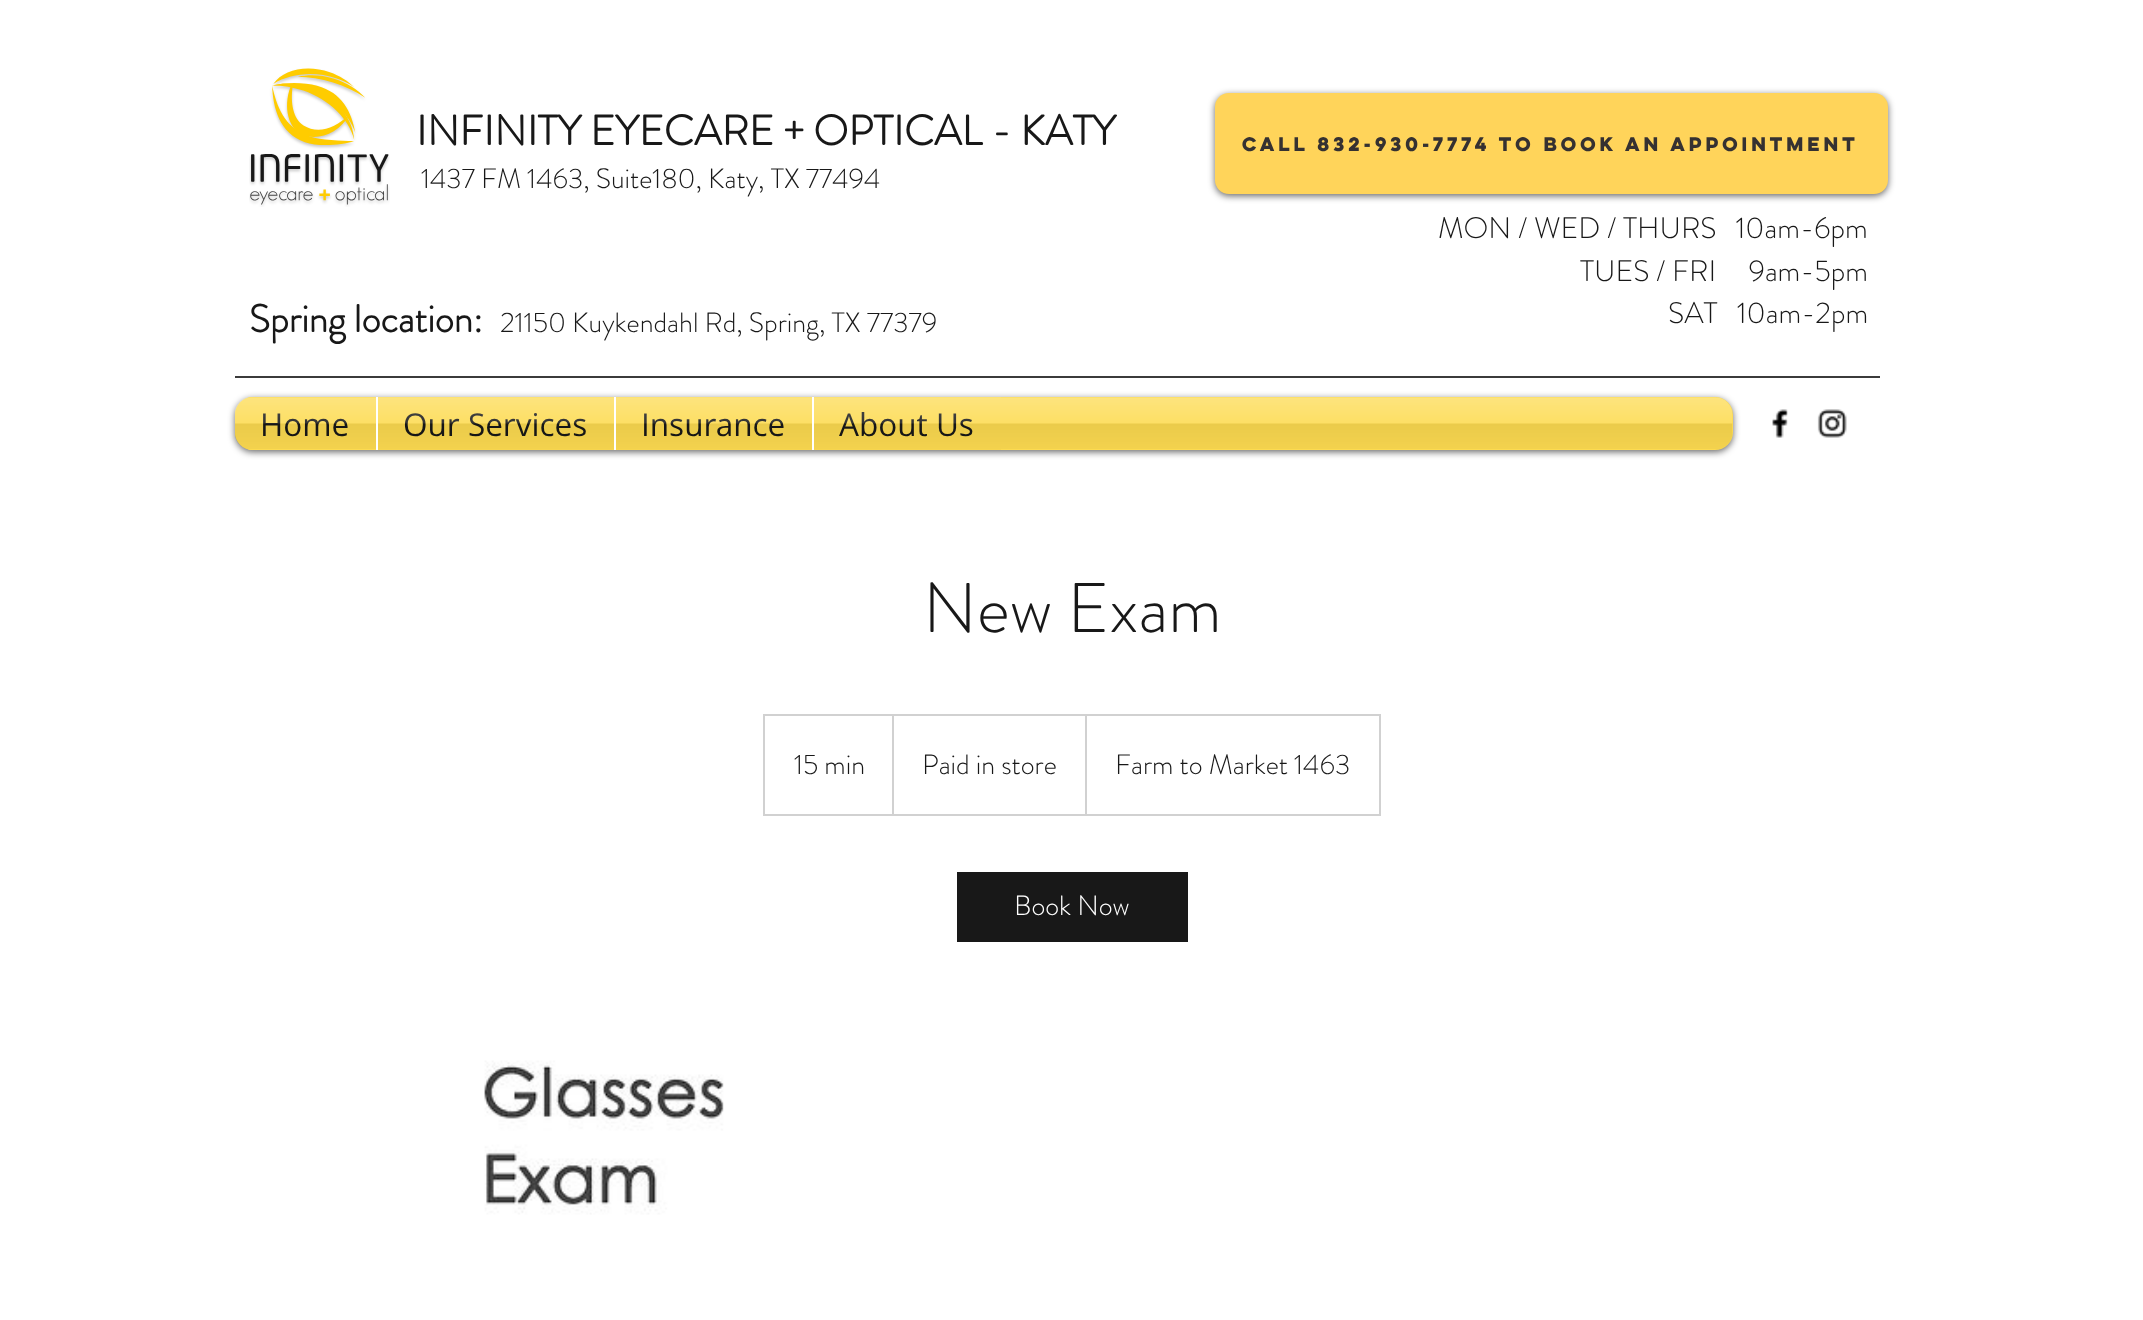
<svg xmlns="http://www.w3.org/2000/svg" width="2143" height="1320">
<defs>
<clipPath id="clip1"><rect x="765" y="716" width="614" height="98"/></clipPath>
</defs>
<rect width="100%" height="100%" fill="#fff"/>
<image x="249" y="68" width="141" height="139" href="media/1.png"/>
<text x="416" y="145" style="font-family:'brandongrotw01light';font-size:42px;font-weight:bold;fill:#181818">INFINITY EYECARE + OPTICAL - KATY</text>
<rect x="1215" y="95" width="673" height="101" rx="14" fill="#00000099" filter="blur(3.5px)"/>
<rect x="1215" y="93" width="673" height="101" rx="14" fill="#ffd45a"/>
<text x="1242" y="151" style="font-family:'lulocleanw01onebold';font-size:17.5px;font-weight:bold;fill:#353131">Call 832-930-7774 to book an appointment</text>
<text x="421" y="188" style="font-family:'brandongrotw01light';font-size:28px;font-weight:300;fill:#181818">1437 FM 1463, Suite180, Katy, TX 77494</text>
<text x="249" y="332" style="font-family:'brandongrotw01light';font-size:38.5px;font-weight:bold;fill:#181818">Spring location:</text>
<text x="500" y="332" style="font-family:'brandongrotw01light';font-size:28px;font-weight:300;fill:#181818">21150 Kuykendahl Rd, Spring, TX 77379</text>
<text x="1438" y="238" style="font-family:'brandongrotw01light';font-size:29.75px;font-weight:300;fill:#181818" xml:space="preserve">MON / WED / THURS   10am-6pm</text>
<text x="1580" y="281" style="font-family:'brandongrotw01light';font-size:29.75px;font-weight:300;fill:#181818" xml:space="preserve">TUES / FRI     9am-5pm</text>
<text x="1668" y="323" style="font-family:'brandongrotw01light';font-size:29.75px;font-weight:300;fill:#181818" xml:space="preserve">SAT   10am-2pm</text>
<rect x="235" y="376" width="1645" height="2" fill="#3b3b3b"/>
<rect x="235" y="399" width="1498" height="53" rx="18" fill="#00000099" filter="blur(3.5px)"/>
<rect x="235" y="397" width="1498" height="53" rx="18" fill="#fddb51"/>
<image x="235" y="397" width="1498" height="52" href="media/2.png"/>
<path d="M253 397h123v53h-123c-10 0-18-8-18-18v-17c0-10 8-18 18-18z" fill="#fddb51"/>
<text x="260" y="436" style="font-family:Open Sans;font-size:31.5px;fill:#181818">Home</text>
<image x="235" y="397" width="141" height="52" href="media/3.png"/>
<rect x="378" y="397" width="236" height="52" fill="#fddb51"/>
<rect x="376" y="397" width="2" height="53" fill="#fff"/>
<text x="403" y="436" style="font-family:Open Sans;font-size:31.5px;fill:#181818">Our Services</text>
<image x="378" y="397" width="236" height="53" href="media/4.png"/>
<rect x="616" y="397" width="196" height="52" fill="#fddb51"/>
<rect x="614" y="397" width="2" height="53" fill="#fff"/>
<text x="641" y="436" style="font-family:Open Sans;font-size:31.5px;fill:#181818">Insurance</text>
<image x="616" y="397" width="196" height="53" href="media/5.png"/>
<rect x="814" y="397" width="187" height="52" fill="#fddb51"/>
<rect x="812" y="397" width="2" height="53" fill="#fff"/>
<text x="839" y="436" style="font-family:Open Sans;font-size:31.5px;fill:#181818">About Us</text>
<image x="814" y="397" width="187" height="53" href="media/6.png"/>
<image x="1772" y="409" width="16" height="29" href="media/7.png"/>
<image x="1817" y="409" width="30" height="29" href="media/8.png"/>
<text x="923" y="632" style="font-family:'brandongrotw01light';font-size:70px;font-weight:300;fill:#181818">New Exam</text>
<rect x="764" y="715" width="616" height="100" fill="none" stroke="#d1d1d1" stroke-width="2"/>
<text x="794" y="774" style="font-family:'brandongrotw01light';font-size:28px;font-weight:300;fill:#181818">15 min</text>
<g clip-path="url(#clip1)">
<path d="M892 814v-100l2 2v98z" fill="#d1d1d1"/>
</g>
<text x="922" y="774" style="font-family:'brandongrotw01light';font-size:28px;font-weight:300;fill:#181818">Paid in store</text>
<g clip-path="url(#clip1)">
<path d="M1085 814v-100l2 2v98z" fill="#d1d1d1"/>
</g>
<text x="1115" y="774" style="font-family:'brandongrotw01light';font-size:28px;font-weight:300;fill:#181818">Farm to Market 1463</text>
<rect x="957" y="872" width="231" height="70" fill="#181818"/>
<text x="1014" y="915" style="font-family:'brandongrotw01light';font-size:28px;font-weight:300;fill:#fff">Book Now</text>
<image x="482" y="1058" width="247" height="157" href="media/9.png"/>
</svg>
